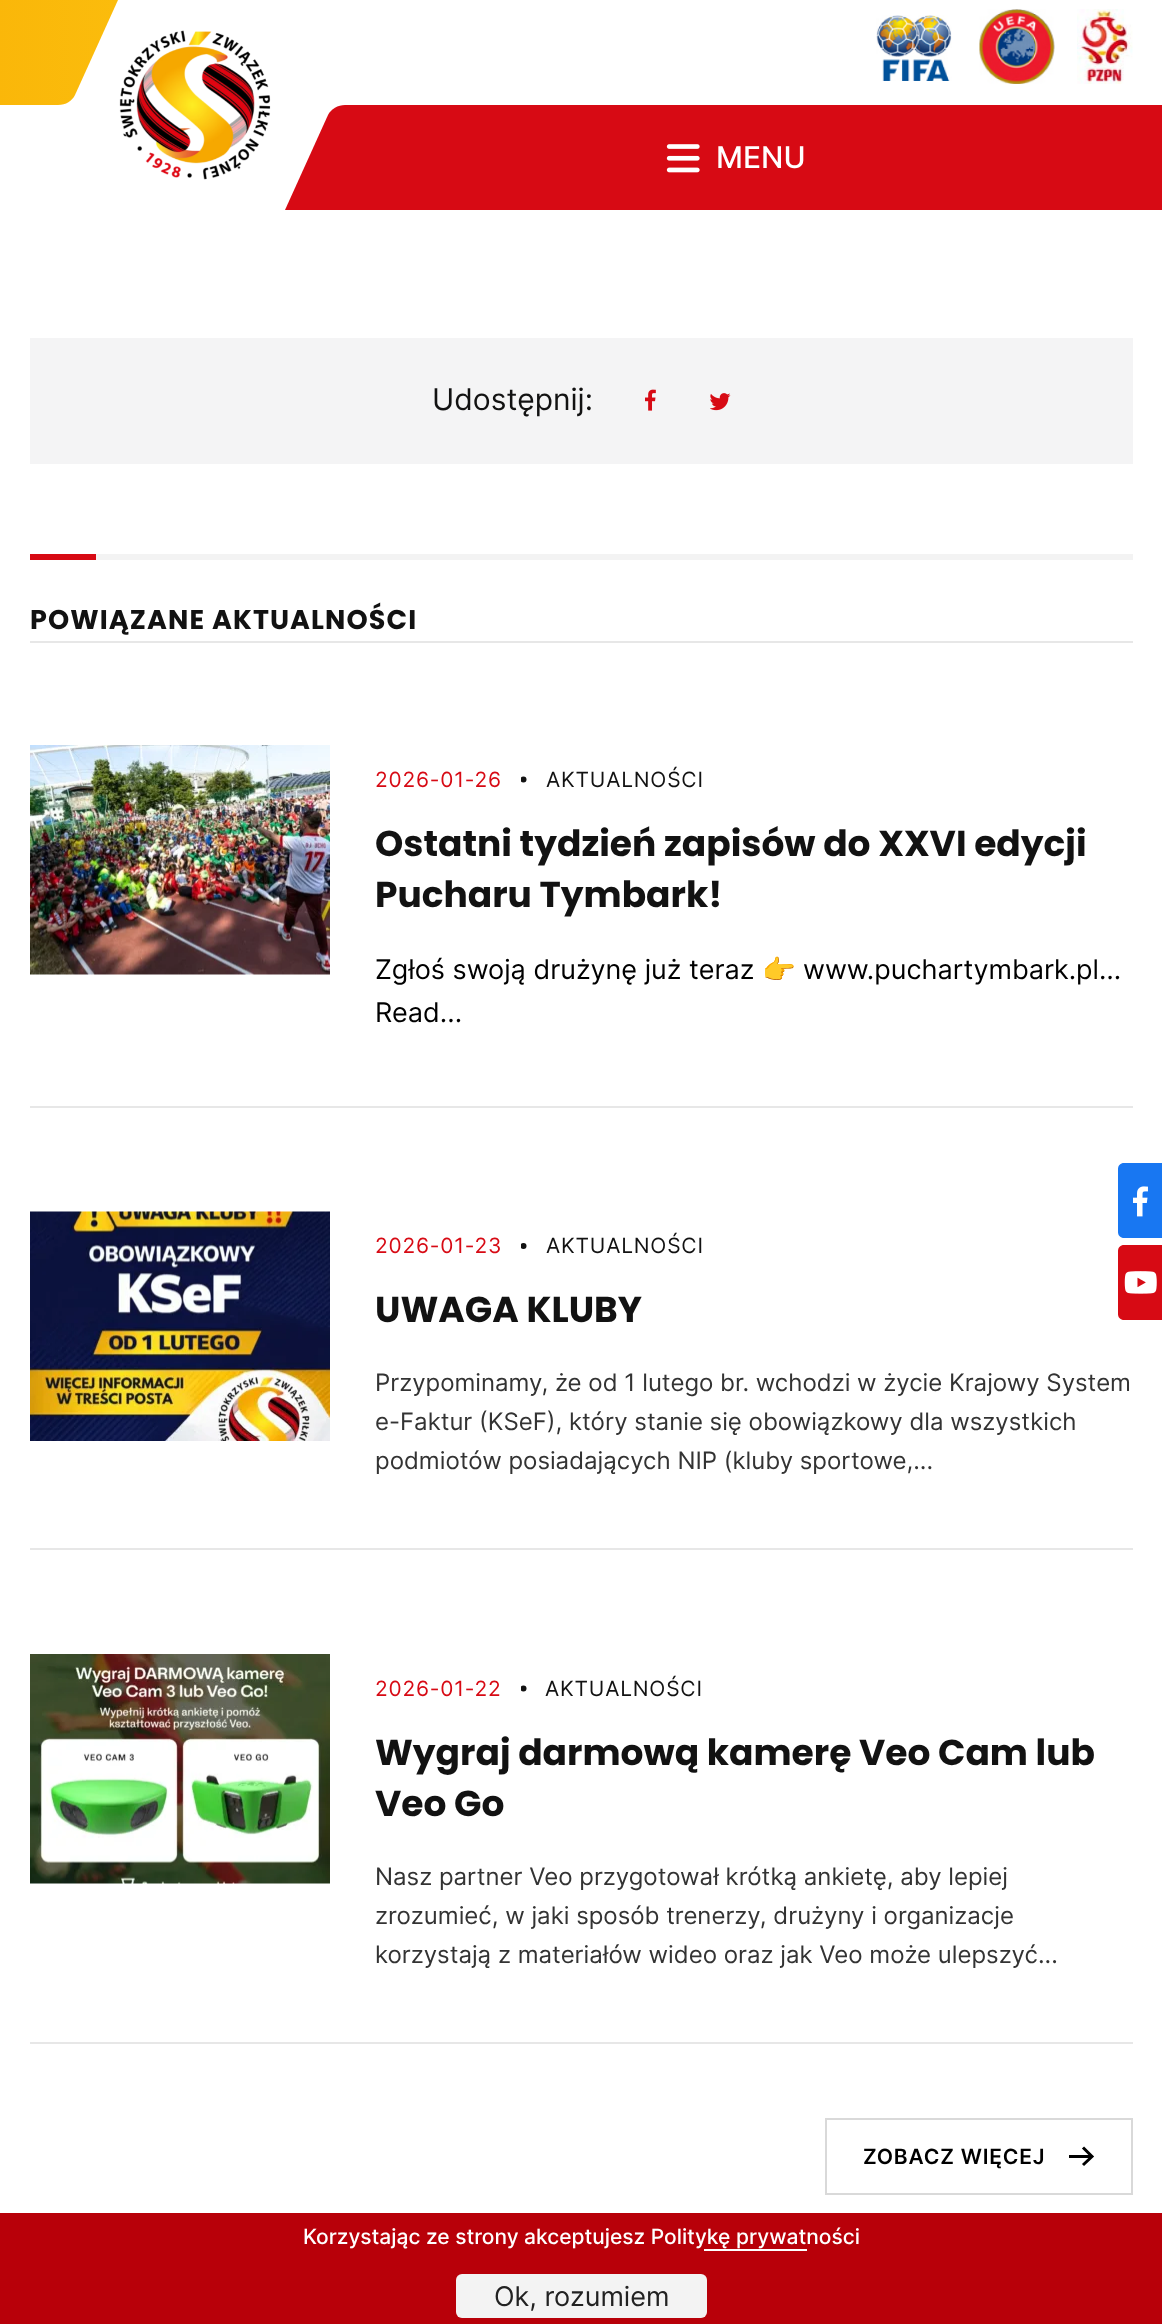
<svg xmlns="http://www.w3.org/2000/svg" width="1162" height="2324">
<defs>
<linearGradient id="g1" gradientUnits="userSpaceOnUse" x1="119" y1="0" x2="-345" y2="0"><stop offset="0" stop-color="#fbbc0c"/><stop offset="1" stop-color="#f7a901"/></linearGradient>
<clipPath id="clip1"><rect x="521" y="776" width="7" height="7"/></clipPath>
<clipPath id="clip2"><rect x="521" y="1242" width="7" height="8"/></clipPath>
<clipPath id="clip3"><rect x="521" y="1685" width="7" height="7"/></clipPath>
</defs>
<rect width="100%" height="100%" fill="#fff"/>
<path d="M75 95c-3 6-9 10-17 10h-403v-105h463z" fill="url(#g1)"/>
<image x="119" y="30" width="152" height="150" href="media/1.png"/>
<image x="876" y="15" width="76" height="66" href="media/2.png"/>
<image x="979" y="9" width="76" height="75" href="media/3.png"/>
<image x="1077" y="9" width="56" height="75" href="media/4.png"/>
<path d="M328 115c3-6 10-10 17-10h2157v105h-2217z" fill="#d70a14"/>
<image x="666" y="144" width="34" height="29" href="media/5.png"/>
<text x="716" y="168" style="font-family:Inter;font-size:30px;font-weight:500;fill:#fff">MENU</text>
<rect x="30" y="338" width="1103" height="126" fill="#f4f4f5"/>
<text x="432" y="410" style="font-family:Inter;font-size:30px;fill:#121212">Udostępnij:</text>
<image x="645" y="389" width="11" height="22" href="media/6.png"/>
<image x="710" y="393" width="21" height="18" href="media/7.png"/>
<rect x="96" y="554" width="1037" height="6" fill="#f3f3f3"/>
<rect x="30" y="554" width="66" height="6" fill="#d70a14"/>
<text x="30" y="629" style="font-family:Poppins;font-size:27px;font-weight:bold;letter-spacing:1.1px;fill:#121212">POWIĄZANE AKTUALNOŚCI</text>
<rect x="30" y="641" width="1103" height="2" fill="#e7e7e7"/>
<image x="30" y="745" width="300" height="230" href="media/8.png"/>
<text x="375" y="787" style="font-family:Inter;font-size:21px;letter-spacing:0.8px;fill:#d70a14">2026-01-26</text>
<g clip-path="url(#clip1)">
<circle cx="523.5" cy="779.5" r="3" fill="#121212"/>
</g>
<text x="546" y="787" style="font-family:Inter;font-size:21px;letter-spacing:0.8px;fill:#121212">AKTUALNOŚCI</text>
<text x="375" y="856" style="font-family:Poppins;font-size:36px;font-weight:bold;fill:#121212">Ostatni tydzień zapisów do XXVI edycji</text>
<text x="375" y="907" style="font-family:Poppins;font-size:36px;font-weight:bold;fill:#121212">Pucharu Tymbark!</text>
<text x="375" y="979" style="font-family:Inter;font-size:27px;fill:#000">Zgłoś swoją drużynę już teraz</text>
<text x="762" y="979" style="font-family:Noto Color Emoji;font-size:27px;fill:#000">👉</text>
<text x="803" y="979" style="font-family:Inter;font-size:27px;fill:#000">www.puchartymbark.pl…</text>
<text x="375" y="1022" style="font-family:Inter;font-size:27px;fill:#000">Read...</text>
<rect x="30" y="1106" width="1103" height="2" fill="#e7e7e7"/>
<image x="30" y="1211" width="300" height="230" href="media/9.png"/>
<text x="375" y="1253" style="font-family:Inter;font-size:21px;letter-spacing:0.8px;fill:#d70a14">2026-01-23</text>
<g clip-path="url(#clip2)">
<circle cx="523.5" cy="1246" r="3" fill="#121212"/>
</g>
<text x="546" y="1253" style="font-family:Inter;font-size:21px;letter-spacing:0.8px;fill:#121212">AKTUALNOŚCI</text>
<text x="375" y="1322" style="font-family:Poppins;font-size:36px;font-weight:bold;fill:#121212">UWAGA KLUBY</text>
<text x="375" y="1391" style="font-family:Inter;font-size:24px;fill:#333">Przypominamy, że od 1 lutego br. wchodzi w życie Krajowy System</text>
<text x="375" y="1430" style="font-family:Inter;font-size:24px;fill:#333">e-Faktur (KSeF), który stanie się obowiązkowy dla wszystkich</text>
<text x="375" y="1469" style="font-family:Inter;font-size:24px;fill:#333">podmiotów posiadających NIP (kluby sportowe,...</text>
<rect x="30" y="1548" width="1103" height="2" fill="#e7e7e7"/>
<image x="30" y="1654" width="300" height="230" href="media/10.png"/>
<text x="375" y="1696" style="font-family:Inter;font-size:21px;letter-spacing:0.8px;fill:#d70a14">2026-01-22</text>
<g clip-path="url(#clip3)">
<circle cx="523.5" cy="1688.5" r="3" fill="#121212"/>
</g>
<text x="545" y="1696" style="font-family:Inter;font-size:21px;letter-spacing:0.8px;fill:#121212">AKTUALNOŚCI</text>
<text x="375" y="1765" style="font-family:Poppins;font-size:36px;font-weight:bold;fill:#121212">Wygraj darmową kamerę Veo Cam lub</text>
<text x="375" y="1816" style="font-family:Poppins;font-size:36px;font-weight:bold;fill:#121212">Veo Go</text>
<text x="375" y="1885" style="font-family:Inter;font-size:24px;fill:#333">Nasz partner Veo przygotował krótką ankietę, aby lepiej</text>
<text x="375" y="1924" style="font-family:Inter;font-size:24px;fill:#333">zrozumieć, w jaki sposób trenerzy, drużyny i organizacje</text>
<text x="375" y="1963" style="font-family:Inter;font-size:24px;fill:#333">korzystają z materiałów wideo oraz jak Veo może ulepszyć...</text>
<rect x="30" y="2042" width="1103" height="2" fill="#e7e7e7"/>
<rect x="826" y="2119" width="306" height="75" fill="none" stroke="#d9d9d9" stroke-width="2"/>
<text x="863" y="2164" style="font-family:Inter;font-size:21px;font-weight:600;letter-spacing:0.8px;fill:#000">ZOBACZ WIĘCEJ</text>
<path d="M1083 2147.5l9 9l-9 8.5" fill="none" stroke="#000" stroke-width="3"/>
<rect x="1069" y="2155" width="23" height="3" fill="#000"/>
<path d="M1124 1163h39v75h-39c-3.5 0-6-2.5-6-6v-63c0-3.5 2.5-6 6-6z" fill="#1877f2"/>
<image x="1133" y="1186" width="15" height="31" href="media/11.png"/>
<path d="M1124 1245h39v75h-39c-3.5 0-6-2.5-6-6v-63c0-3.5 2.5-6 6-6z" fill="#d70a14"/>
<image x="1124" y="1271" width="33" height="23" href="media/12.png"/>
<rect y="2213" width="1162" height="111" fill="#b80009"/>
<text x="303" y="2244" style="font-family:Inter;font-size:21px;font-weight:500;fill:#fff">Korzystając ze strony akceptujesz Politykę prywatności</text>
<rect x="704" y="2249" width="103" height="2" fill="#fff"/>
<rect x="456" y="2274" width="251" height="44" rx="6" fill="#f3f3f3"/>
<text x="494" y="2306" style="font-family:Inter;font-size:27px;fill:#222">Ok, rozumiem</text>
</svg>
